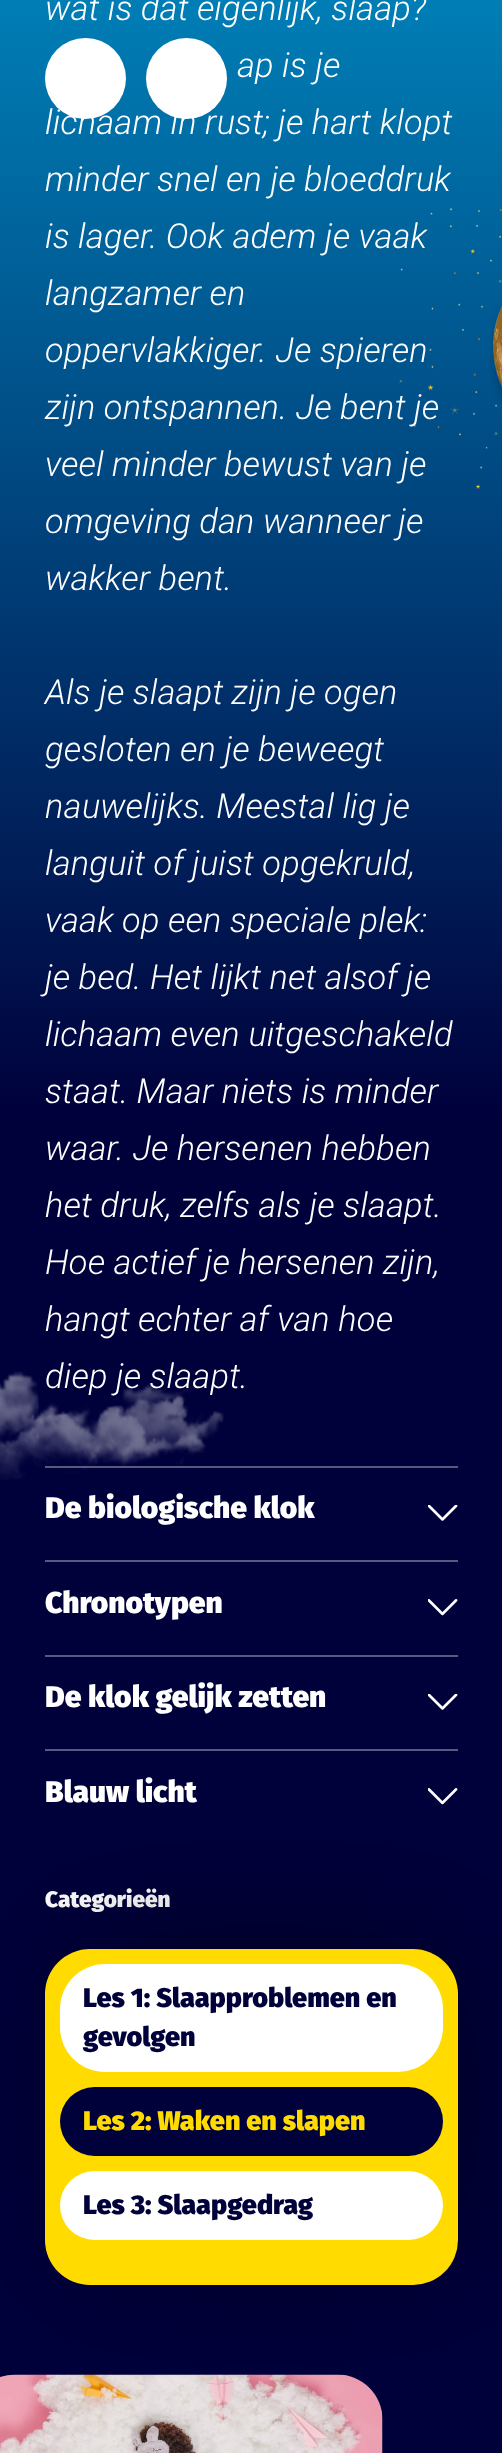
<svg xmlns="http://www.w3.org/2000/svg" width="502" height="2453">
<defs>
<linearGradient id="g1" gradientUnits="userSpaceOnUse" x1="251" y1="-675" x2="251" y2="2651"><stop offset="0" stop-color="#01c9ff"/><stop offset="0.54" stop-color="#00003b"/></linearGradient>
</defs>
<rect width="100%" height="100%" fill="#fff"/>
<rect width="502" height="2453" fill="url(#g1)"/>
<text x="45" y="20" style="font-family:Roboto;font-size:34.5px;font-weight:300;font-style:italic;fill:#fff">wat is dat eigenlijk, slaap?</text>
<text x="237" y="77" style="font-family:Roboto;font-size:34.5px;font-weight:300;font-style:italic;fill:#fff">ap is je</text>
<text x="45" y="134" style="font-family:Roboto;font-size:34.5px;font-weight:300;font-style:italic;fill:#fff">lichaam in rust; je hart klopt</text>
<text x="45" y="191" style="font-family:Roboto;font-size:34.5px;font-weight:300;font-style:italic;fill:#fff">minder snel en je bloeddruk</text>
<image x="490" y="304" width="12" height="99" href="media/3.png"/>
<image x="398" y="208" width="104" height="281" href="media/2.png"/>
<text x="45" y="248" style="font-family:Roboto;font-size:34.5px;font-weight:300;font-style:italic;fill:#fff">is lager. Ook adem je vaak</text>
<text x="45" y="305" style="font-family:Roboto;font-size:34.5px;font-weight:300;font-style:italic;fill:#fff">langzamer en</text>
<text x="45" y="362" style="font-family:Roboto;font-size:34.5px;font-weight:300;font-style:italic;fill:#fff">oppervlakkiger. Je spieren</text>
<text x="45" y="419" style="font-family:Roboto;font-size:34.5px;font-weight:300;font-style:italic;fill:#fff">zijn ontspannen. Je bent je</text>
<text x="45" y="476" style="font-family:Roboto;font-size:34.5px;font-weight:300;font-style:italic;fill:#fff">veel minder bewust van je</text>
<text x="45" y="533" style="font-family:Roboto;font-size:34.5px;font-weight:300;font-style:italic;fill:#fff">omgeving dan wanneer je</text>
<text x="45" y="590" style="font-family:Roboto;font-size:34.5px;font-weight:300;font-style:italic;fill:#fff">wakker bent.</text>
<text x="45" y="704" style="font-family:Roboto;font-size:34.5px;font-weight:300;font-style:italic;fill:#fff">Als je slaapt zijn je ogen</text>
<text x="45" y="761" style="font-family:Roboto;font-size:34.5px;font-weight:300;font-style:italic;fill:#fff">gesloten en je beweegt</text>
<text x="45" y="818" style="font-family:Roboto;font-size:34.5px;font-weight:300;font-style:italic;fill:#fff">nauwelijks. Meestal lig je</text>
<text x="45" y="875" style="font-family:Roboto;font-size:34.5px;font-weight:300;font-style:italic;fill:#fff">languit of juist opgekruld,</text>
<text x="45" y="932" style="font-family:Roboto;font-size:34.5px;font-weight:300;font-style:italic;fill:#fff">vaak op een speciale plek:</text>
<text x="45" y="989" style="font-family:Roboto;font-size:34.5px;font-weight:300;font-style:italic;fill:#fff">je bed. Het lijkt net alsof je</text>
<text x="45" y="1046" style="font-family:Roboto;font-size:34.5px;font-weight:300;font-style:italic;fill:#fff">lichaam even uitgeschakeld</text>
<text x="45" y="1103" style="font-family:Roboto;font-size:34.5px;font-weight:300;font-style:italic;fill:#fff">staat. Maar niets is minder</text>
<text x="45" y="1160" style="font-family:Roboto;font-size:34.5px;font-weight:300;font-style:italic;fill:#fff">waar. Je hersenen hebben</text>
<text x="45" y="1217" style="font-family:Roboto;font-size:34.5px;font-weight:300;font-style:italic;fill:#fff">het druk, zelfs als je slaapt.</text>
<text x="45" y="1274" style="font-family:Roboto;font-size:34.5px;font-weight:300;font-style:italic;fill:#fff">Hoe actief je hersenen zijn,</text>
<text x="45" y="1331" style="font-family:Roboto;font-size:34.5px;font-weight:300;font-style:italic;fill:#fff">hangt echter af van hoe</text>
<image x="0" y="1371" width="224" height="109" href="media/1.png"/>
<text x="45" y="1388" style="font-family:Roboto;font-size:34.5px;font-weight:300;font-style:italic;fill:#fff">diep je slaapt.</text>
<circle cx="85.5" cy="78.5" r="40.5" fill="#fff"/>
<circle cx="186.5" cy="78.5" r="40.5" fill="#fff"/>
<rect x="45" y="1466" width="413" height="2" fill="#ffffff59"/>
<text x="45" y="1518" style="font-family:Fira Sans;font-size:30px;font-weight:900;fill:#fff">De biologische klok</text>
<image x="428" y="1505" width="30" height="16" href="media/4.png"/>
<rect x="45" y="1560" width="413" height="2" fill="#595980"/>
<text x="45" y="1613" style="font-family:Fira Sans;font-size:30px;font-weight:900;fill:#fff">Chronotypen</text>
<image x="428" y="1599" width="30" height="17" href="media/5.png"/>
<rect x="45" y="1655" width="413" height="2" fill="#595980"/>
<text x="45" y="1707" style="font-family:Fira Sans;font-size:30px;font-weight:900;fill:#fff">De klok gelijk zetten</text>
<image x="428" y="1694" width="30" height="16" href="media/4.png"/>
<rect x="45" y="1749" width="413" height="2" fill="#595980"/>
<text x="45" y="1802" style="font-family:Fira Sans;font-size:30px;font-weight:900;fill:#fff">Blauw licht</text>
<image x="428" y="1788" width="30" height="17" href="media/5.png"/>
<text x="45" y="1907" style="font-family:Fira Sans;font-size:22.5px;font-weight:900;fill:#fff">Categorieën</text>
<rect x="78" y="1952" width="377" height="300" rx="27" fill="#00000080" filter="blur(65px)"/>
<rect x="45" y="1949" width="413" height="336" rx="45" fill="#ffdb00"/>
<rect x="60" y="1964" width="383" height="108" rx="45" fill="#fff"/>
<text x="83" y="2007" style="font-family:Fira Sans;font-size:27px;font-weight:900;fill:#00003b">Les 1: Slaapproblemen en</text>
<text x="83" y="2046" style="font-family:Fira Sans;font-size:27px;font-weight:900;fill:#00003b">gevolgen</text>
<rect x="60" y="2087" width="383" height="69" rx="34.5" fill="#00003b"/>
<text x="83" y="2130" style="font-family:Fira Sans;font-size:27px;font-weight:900;fill:#ffdb00">Les 2: Waken en slapen</text>
<rect x="60" y="2171" width="383" height="69" rx="34.5" fill="#fff"/>
<text x="83" y="2214" style="font-family:Fira Sans;font-size:27px;font-weight:900;fill:#00003b">Les 3: Slaapgedrag</text>
<image x="0" y="2374" width="383" height="79" href="media/6.png"/>
</svg>
